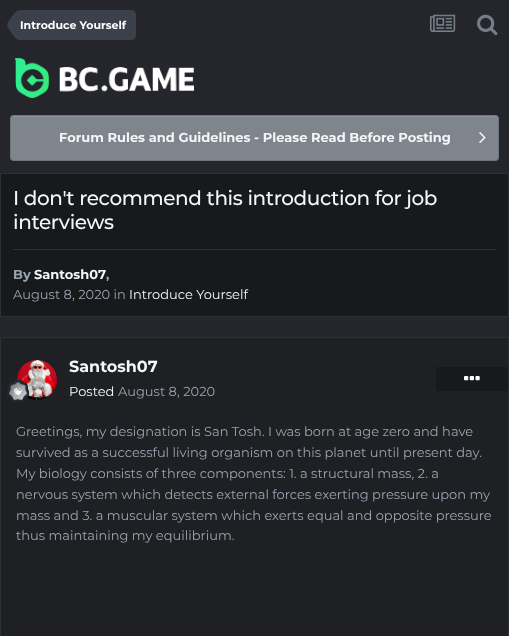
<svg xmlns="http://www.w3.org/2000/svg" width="509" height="636">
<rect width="100%" height="100%" fill="#24262b"/>
<path d="M20 10h111c3 0 5 2 5 5v20c0 3-2 5-5 5h-111z" fill="#3c404a"/>
<path d="M26 13.5l2 3c3 4.5 3 12.5 0 17l-2 3c-3.5 4.5-8.5 4.5-12 0l-6.5-9.5c-.5-1-.5-3 0-4l6.5-9.5c3.5-4.5 8.5-4.5 12 0z" fill="#3c404a"/>
<text x="20" y="29" style="font-family:Montserrat;font-size:11px;font-weight:bold;fill:#fff">Introduce Yourself</text>
<image x="430" y="14" width="26" height="18" href="media/1.png"/>
<image x="477" y="14" width="21" height="22" href="media/2.png"/>
<image x="15" y="58" width="179" height="40" href="media/3.png"/>
<rect x="10" y="115" width="489" height="46" rx="4" fill="#7f858d"/>
<path d="M14 117h481c2 0 3 1 3 3v-1c0-2-1-3-3-3h-481c-2 0-3 1-3 3v1c0-2 1-3 3-3z" fill="#8c9198"/>
<rect x="10.5" y="115.5" width="488" height="45" rx="3.5" fill="none" stroke="#0000001a"/>
<text x="59" y="142" style="font-family:Montserrat;font-size:13px;font-weight:bold;fill:#f5f6f7">Forum Rules and Guidelines - Please Read Before Posting</text>
<image x="479" y="132" width="7" height="11" href="media/4.png"/>
<rect x="0.5" y="173.5" width="508" height="143" fill="#17191b" stroke="#2d3035"/>
<text x="13" y="205" style="font-family:Montserrat;font-size:20px;font-weight:500;letter-spacing:-0.4px;fill:#f5f6f7">I don't recommend this introduction for job</text>
<text x="13" y="229" style="font-family:Montserrat;font-size:20px;font-weight:500;letter-spacing:-0.4px;fill:#f5f6f7">interviews</text>
<rect x="13" y="249" width="483" height="1" fill="#2d3037"/>
<text x="13" y="279" style="font-family:Montserrat;font-size:13px;font-weight:bold;fill:#99a4b0">By</text>
<text x="34" y="279" style="font-family:Montserrat;font-size:13px;font-weight:bold;fill:#f5f6f7">Santosh07</text>
<text x="106" y="279" style="font-family:Montserrat;font-size:13px;font-weight:bold;fill:#99a4b0">,</text>
<text x="13" y="299" style="font-family:Montserrat;font-size:13px;fill:#99a4b0">August 8, 2020 in</text>
<text x="129" y="299" style="font-family:Montserrat;font-size:13px;fill:#f5f6f7">Introduce Yourself</text>
<rect x="0.5" y="337.5" width="508" height="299" fill="#1e2024" stroke="#2d3035"/>
<image x="17" y="360" width="40" height="40" href="media/5.png"/>
<image x="7" y="380" width="22" height="22" href="media/6.png"/>
<text x="69" y="372" style="font-family:Montserrat;font-size:16px;font-weight:bold;fill:#f5f6f7">Santosh07</text>
<text x="69" y="396" style="font-family:Montserrat;font-size:13px;fill:#f5f6f7">Posted</text>
<text x="118" y="396" style="font-family:Montserrat;font-size:13px;fill:#99a4b0">August 8, 2020</text>
<rect x="436" y="367" width="72" height="24" fill="#17191b"/>
<image x="464" y="376" width="16" height="5" href="media/7.png"/>
<text x="16" y="436" style="font-family:Montserrat;font-size:13px;fill:#99a4b0">Greetings, my designation is San Tosh. I was born at age zero and have</text>
<text x="16" y="457" style="font-family:Montserrat;font-size:13px;fill:#99a4b0">survived as a successful living organism on this planet until present day.</text>
<text x="16" y="478" style="font-family:Montserrat;font-size:13px;fill:#99a4b0">My biology consists of three components: 1. a structural mass, 2. a</text>
<text x="16" y="499" style="font-family:Montserrat;font-size:13px;fill:#99a4b0">nervous system which detects external forces exerting pressure upon my</text>
<text x="16" y="520" style="font-family:Montserrat;font-size:13px;fill:#99a4b0">mass and 3. a muscular system which exerts equal and opposite pressure</text>
<text x="16" y="540" style="font-family:Montserrat;font-size:13px;fill:#99a4b0">thus maintaining my equilibrium.</text>
</svg>
